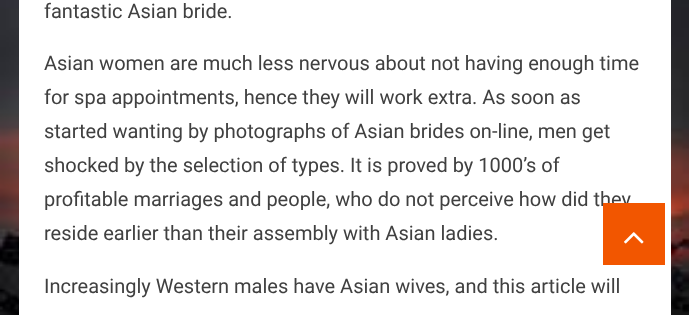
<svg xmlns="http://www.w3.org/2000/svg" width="689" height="315">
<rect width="100%" height="100%" fill="#fff"/>
<image x="0" y="0" width="689" height="315" href="media/1.png"/>
<rect x="19" width="652" height="315" fill="#fff"/>
<text x="44" y="18" style="font-family:Roboto;font-size:20px;fill:#404040">fantastic Asian bride.</text>
<text x="44" y="70" style="font-family:Roboto;font-size:20px;fill:#404040">Asian women are much less nervous about not having enough time</text>
<text x="44" y="104" style="font-family:Roboto;font-size:20px;fill:#404040">for spa appointments, hence they will work extra. As soon as</text>
<text x="44" y="138" style="font-family:Roboto;font-size:20px;fill:#404040">started wanting by photographs of Asian brides on-line, men get</text>
<text x="44" y="172" style="font-family:Roboto;font-size:20px;fill:#404040">shocked by the selection of types. It is proved by 1000’s of</text>
<text x="44" y="206" style="font-family:Roboto;font-size:20px;fill:#404040">profitable marriages and people, who do not perceive how did they</text>
<text x="44" y="240" style="font-family:Roboto;font-size:20px;fill:#404040">reside earlier than their assembly with Asian ladies.</text>
<text x="44" y="293" style="font-family:Roboto;font-size:20px;fill:#404040">Increasingly Western males have Asian wives, and this article will</text>
<rect x="603" y="203" width="62" height="62" fill="#f25600"/>
<image x="624" y="232" width="20" height="12" href="media/2.png"/>
</svg>
